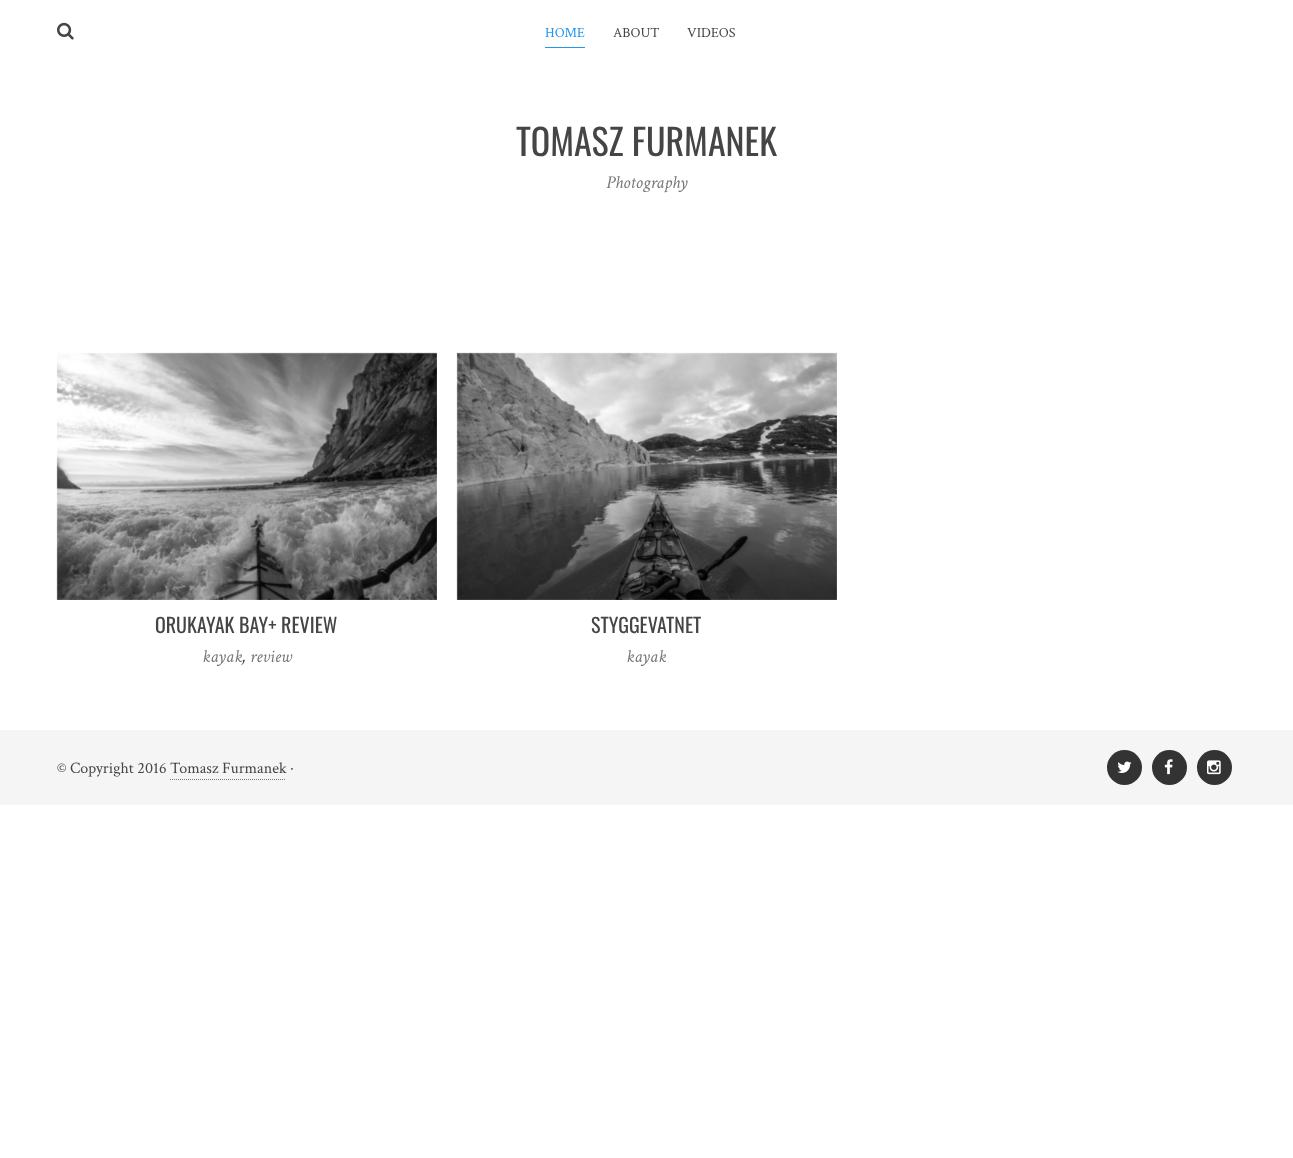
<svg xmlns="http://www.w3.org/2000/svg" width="1293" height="1158">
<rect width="100%" height="100%" fill="#fff"/>
<image x="57" y="22" width="17" height="18" href="media/1.png"/>
<rect x="545" y="47" width="40" height="1" fill="#2196f3"/>
<text x="545" y="37" style="font-family:Crimson Text;font-size:14px;fill:#2196f3">HOME</text>
<text x="613" y="37" style="font-family:Crimson Text;font-size:14px;fill:#454545">ABOUT</text>
<text x="687" y="37" style="font-family:Crimson Text;font-size:14px;fill:#454545">VIDEOS</text>
<text x="516" y="156" style="font-family:Oswald;font-size:36px;fill:#454545">TOMASZ FURMANEK</text>
<text x="606" y="188" style="font-family:Crimson Text;font-size:18px;font-style:italic;fill:#777">Photography</text>
<image x="56" y="352" width="381" height="248" href="media/2.png"/>
<text x="155" y="633" style="font-family:Oswald;font-size:20px;fill:#454545">ORUKAYAK BAY+ REVIEW</text>
<text x="202" y="662" style="font-family:Crimson Text;font-size:18px;font-style:italic;fill:#777">kayak</text>
<text x="242" y="662" style="font-family:Crimson Text;font-size:18px;font-style:italic;fill:#454545">,</text>
<text x="250" y="662" style="font-family:Crimson Text;font-size:18px;font-style:italic;fill:#777">review</text>
<image x="456" y="352" width="381" height="248" href="media/3.png"/>
<text x="591" y="633" style="font-family:Oswald;font-size:20px;fill:#454545">STYGGEVATNET</text>
<text x="626" y="662" style="font-family:Crimson Text;font-size:18px;font-style:italic;fill:#777">kayak</text>
<rect y="730" width="1293" height="75" fill="#f5f5f5"/>
<text x="57" y="773" style="font-family:Crimson Text;font-size:16px;fill:#454545">© Copyright 2016 Tomasz Furmanek ·</text>
<path d="M170 779.5h116" fill="none" stroke="#777" stroke-dasharray="1 1"/>
<circle cx="1124.5" cy="767.5" r="17.5" fill="#333"/>
<image x="1117" y="761" width="15" height="12" href="media/4.png"/>
<circle cx="1169.5" cy="767.5" r="17.5" fill="#333"/>
<image x="1164" y="759" width="9" height="16" href="media/5.png"/>
<circle cx="1214.5" cy="767.5" r="17.5" fill="#333"/>
<image x="1207" y="760" width="14" height="15" href="media/6.png"/>
</svg>
